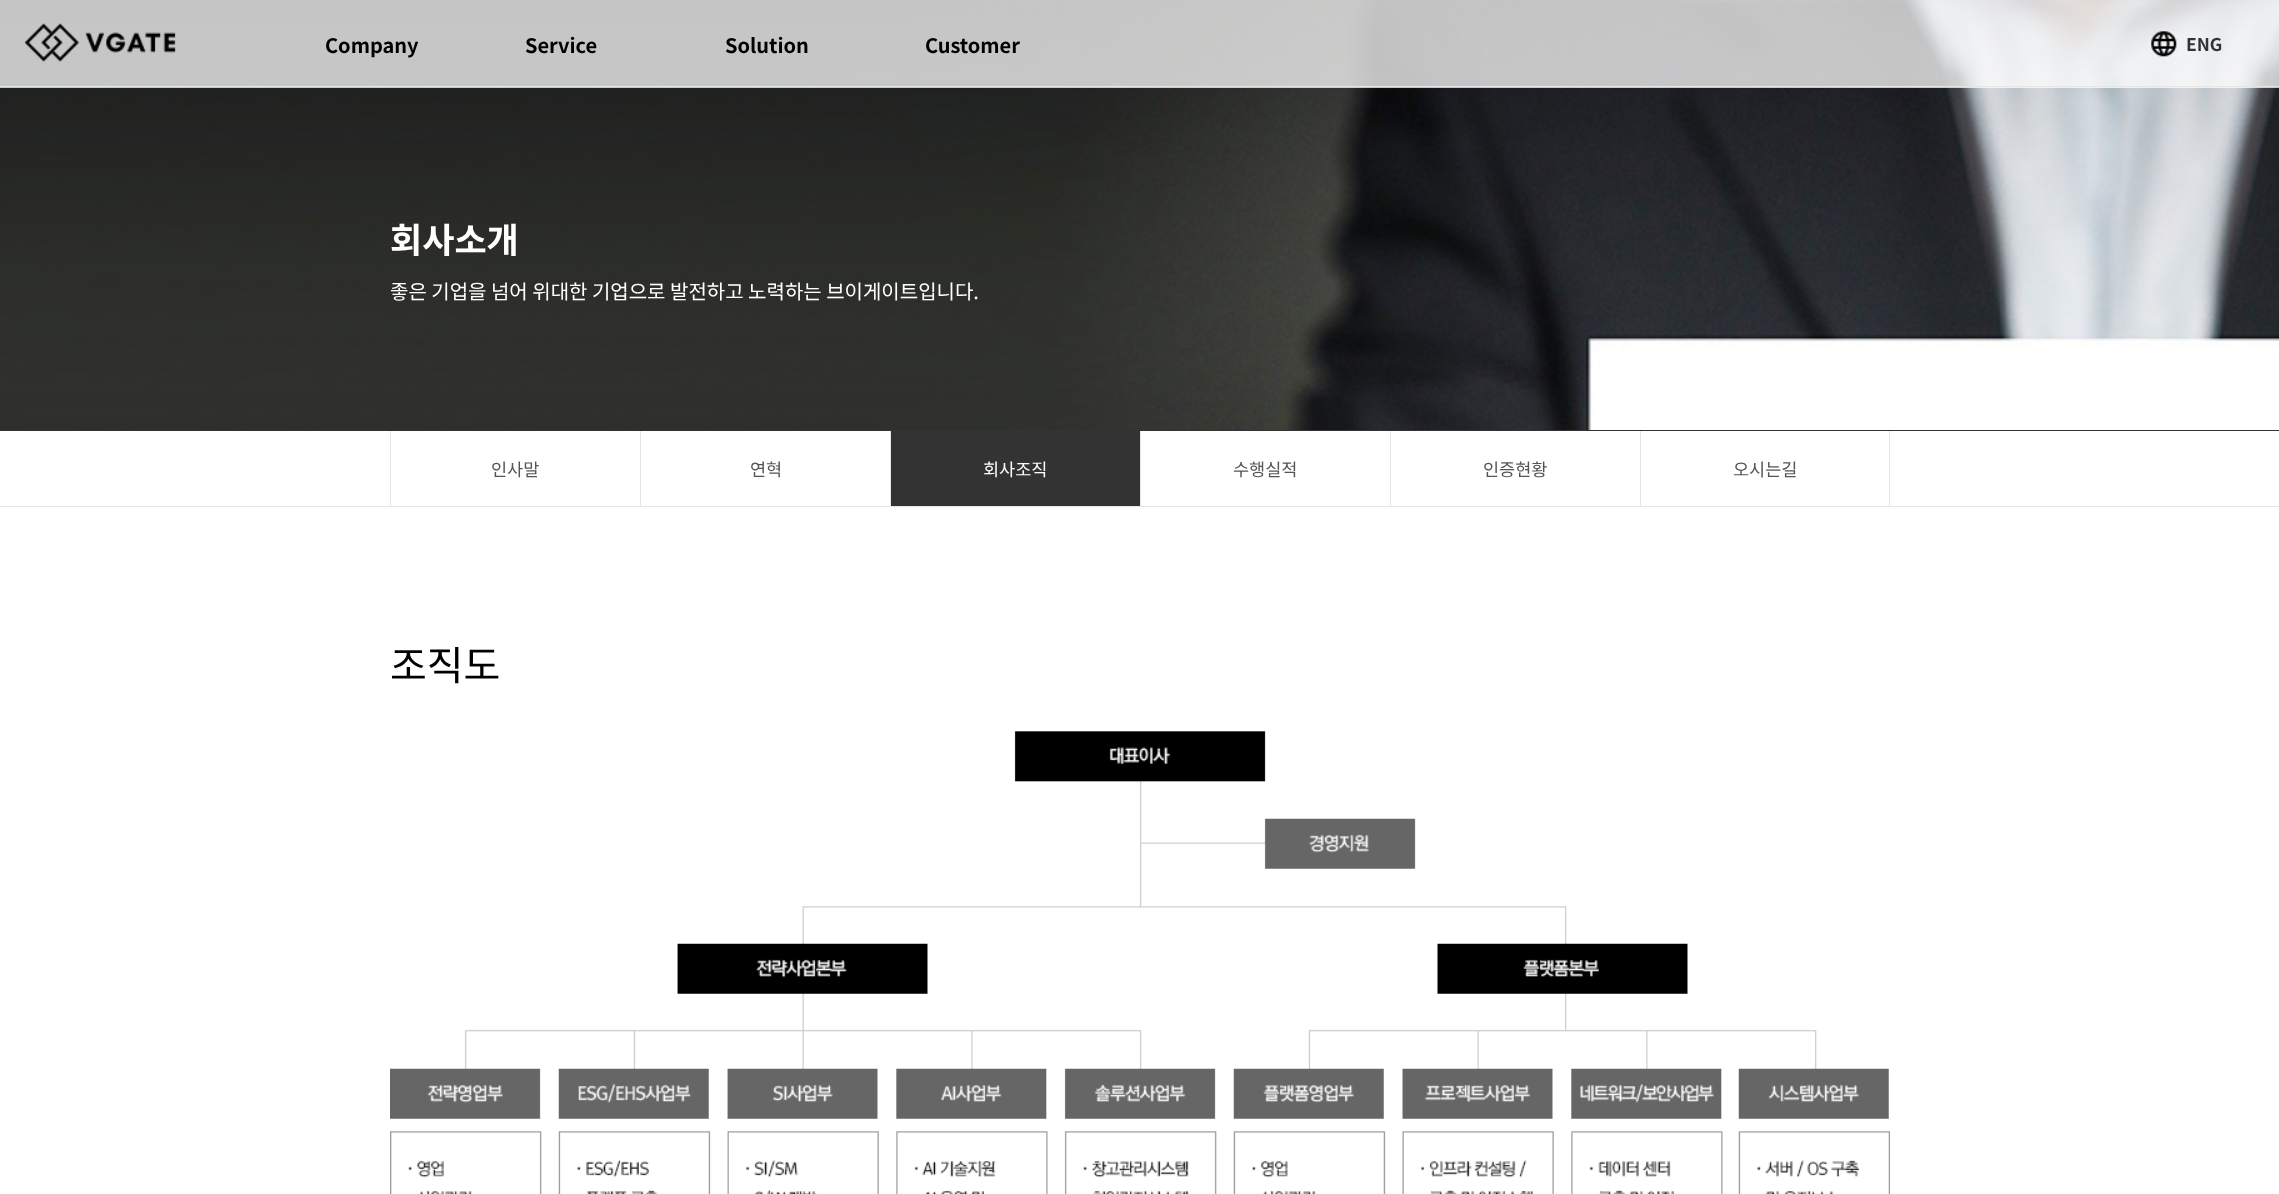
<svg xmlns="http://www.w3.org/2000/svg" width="2279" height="1194">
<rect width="100%" height="100%" fill="#fff"/>
<image x="0" y="0" width="2279" height="430" href="media/3.png"/>
<rect width="2279" height="88" fill="#ffffffbf"/>
<rect y="86" width="2279" height="1" fill="#e5e5e5"/>
<image x="25" y="23" width="151" height="39" href="media/1.png"/>
<text x="325" y="53" style="font-family:Noto Sans KR;font-size:20px;font-weight:bold;fill:#000">Company</text>
<text x="525" y="53" style="font-family:Noto Sans KR;font-size:20px;font-weight:bold;fill:#000">Service</text>
<text x="725" y="53" style="font-family:Noto Sans KR;font-size:20px;font-weight:bold;fill:#000">Solution</text>
<text x="925" y="53" style="font-family:Noto Sans KR;font-size:20px;font-weight:bold;fill:#000">Customer</text>
<image x="2151" y="31" width="26" height="26" href="media/2.png"/>
<text x="2186" y="51" style="font-family:Noto Sans KR;font-size:17.5px;font-weight:bold;fill:#333">ENG</text>
<text x="390" y="253" style="font-family:Noto Sans KR;font-size:35px;font-weight:bold;fill:#fff">회사소개</text>
<text x="390" y="299" style="font-family:Noto Sans KR;font-size:20px;fill:#fff">좋은 기업을 넘어 위대한 기업으로 발전하고 노력하는 브이게이트입니다.</text>
<rect y="430" width="2279" height="1" fill="#333"/>
<rect y="506" width="2279" height="1" fill="#e5e5e5"/>
<rect x="390" y="431" width="1" height="75" fill="#e5e5e5"/>
<text x="491" y="476" style="font-family:Noto Sans KR;font-size:17.5px;fill:#555">인사말</text>
<rect x="640" y="431" width="1" height="75" fill="#e5e5e5"/>
<text x="750" y="476" style="font-family:Noto Sans KR;font-size:17.5px;fill:#555">연혁</text>
<rect x="890" y="431" width="1" height="75" fill="#e5e5e5"/>
<rect x="891" y="431" width="249" height="75" fill="#333"/>
<text x="983" y="476" style="font-family:Noto Sans KR;font-size:17.5px;fill:#fff">회사조직</text>
<rect x="1140" y="431" width="1" height="75" fill="#e5e5e5"/>
<text x="1233" y="476" style="font-family:Noto Sans KR;font-size:17.5px;fill:#555">수행실적</text>
<rect x="1390" y="431" width="1" height="75" fill="#e5e5e5"/>
<text x="1483" y="476" style="font-family:Noto Sans KR;font-size:17.5px;fill:#555">인증현황</text>
<rect x="1889" y="431" width="1" height="75" fill="#e5e5e5"/>
<rect x="1640" y="431" width="1" height="75" fill="#e5e5e5"/>
<text x="1733" y="476" style="font-family:Noto Sans KR;font-size:17.5px;fill:#555">오시는길</text>
<text x="390" y="680" style="font-family:Noto Sans KR;font-size:40px;fill:#000">조직도</text>
<image x="390" y="731" width="1500" height="463" href="media/4.png"/>
</svg>
